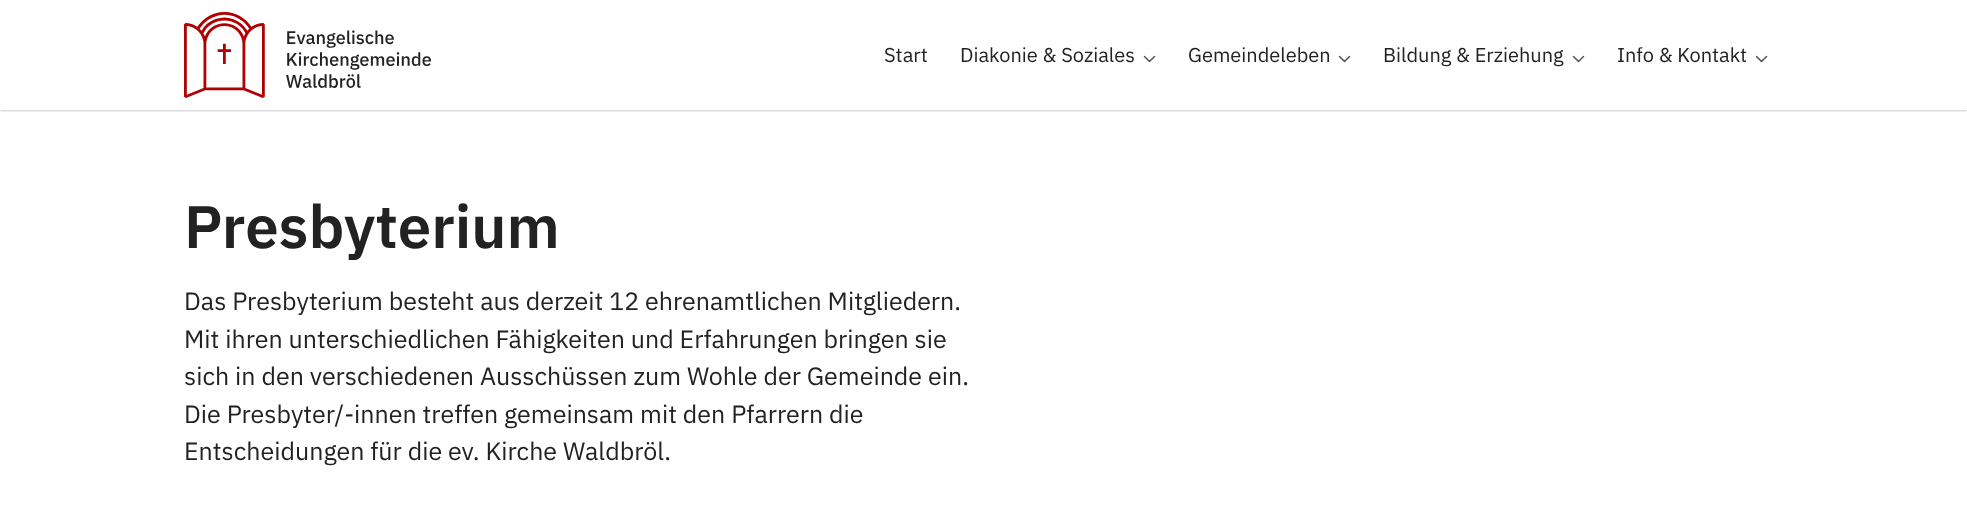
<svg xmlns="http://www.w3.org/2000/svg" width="1967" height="517">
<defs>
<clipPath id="clip1"><rect x="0" y="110" width="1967" height="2"/></clipPath>
</defs>
<rect width="100%" height="100%" fill="#fff"/>
<g clip-path="url(#clip1)">
<rect y="1" width="1967" height="110" fill="#00000033" filter="blur(1px)"/>
</g>
<image x="184" y="12" width="247" height="86" href="media/1.png"/>
<text x="884" y="62" style="font-family:IBM Plex Sans;font-size:20px;fill:#222">Start</text>
<text x="960" y="62" style="font-family:IBM Plex Sans;font-size:20px;fill:#222">Diakonie &amp; Soziales</text>
<path d="M1144.5 56.5l5 5l5-5" fill="none" stroke="#555" stroke-width="1.5" stroke-linecap="round" stroke-linejoin="round"/>
<text x="1188" y="62" style="font-family:IBM Plex Sans;font-size:20px;fill:#222">Gemeindeleben</text>
<path d="M1339.5 56.5l5 5l5-5" fill="none" stroke="#555" stroke-width="1.5" stroke-linecap="round" stroke-linejoin="round"/>
<text x="1383" y="62" style="font-family:IBM Plex Sans;font-size:20px;fill:#222">Bildung &amp; Erziehung</text>
<path d="M1573.5 56.5l5 5l5-5" fill="none" stroke="#555" stroke-width="1.5" stroke-linecap="round" stroke-linejoin="round"/>
<text x="1617" y="62" style="font-family:IBM Plex Sans;font-size:20px;fill:#222">Info &amp; Kontakt</text>
<path d="M1756.5 56.5l5 5l5-5" fill="none" stroke="#555" stroke-width="1.5" stroke-linecap="round" stroke-linejoin="round"/>
<text x="184" y="248" style="font-family:IBM Plex Sans;font-size:60px;font-weight:600;fill:#222">Presbyterium</text>
<text x="184" y="310" style="font-family:IBM Plex Sans;font-size:25px;fill:#222">Das Presbyterium besteht aus derzeit 12 ehrenamtlichen Mitgliedern.</text>
<text x="184" y="348" style="font-family:IBM Plex Sans;font-size:25px;fill:#222">Mit ihren unterschiedlichen Fähigkeiten und Erfahrungen bringen sie</text>
<text x="184" y="385" style="font-family:IBM Plex Sans;font-size:25px;fill:#222">sich in den verschiedenen Ausschüssen zum Wohle der Gemeinde ein.</text>
<text x="184" y="423" style="font-family:IBM Plex Sans;font-size:25px;fill:#222">Die Presbyter/-innen treffen gemeinsam mit den Pfarrern die</text>
<text x="184" y="460" style="font-family:IBM Plex Sans;font-size:25px;fill:#222">Entscheidungen für die ev. Kirche Waldbröl.</text>
</svg>
